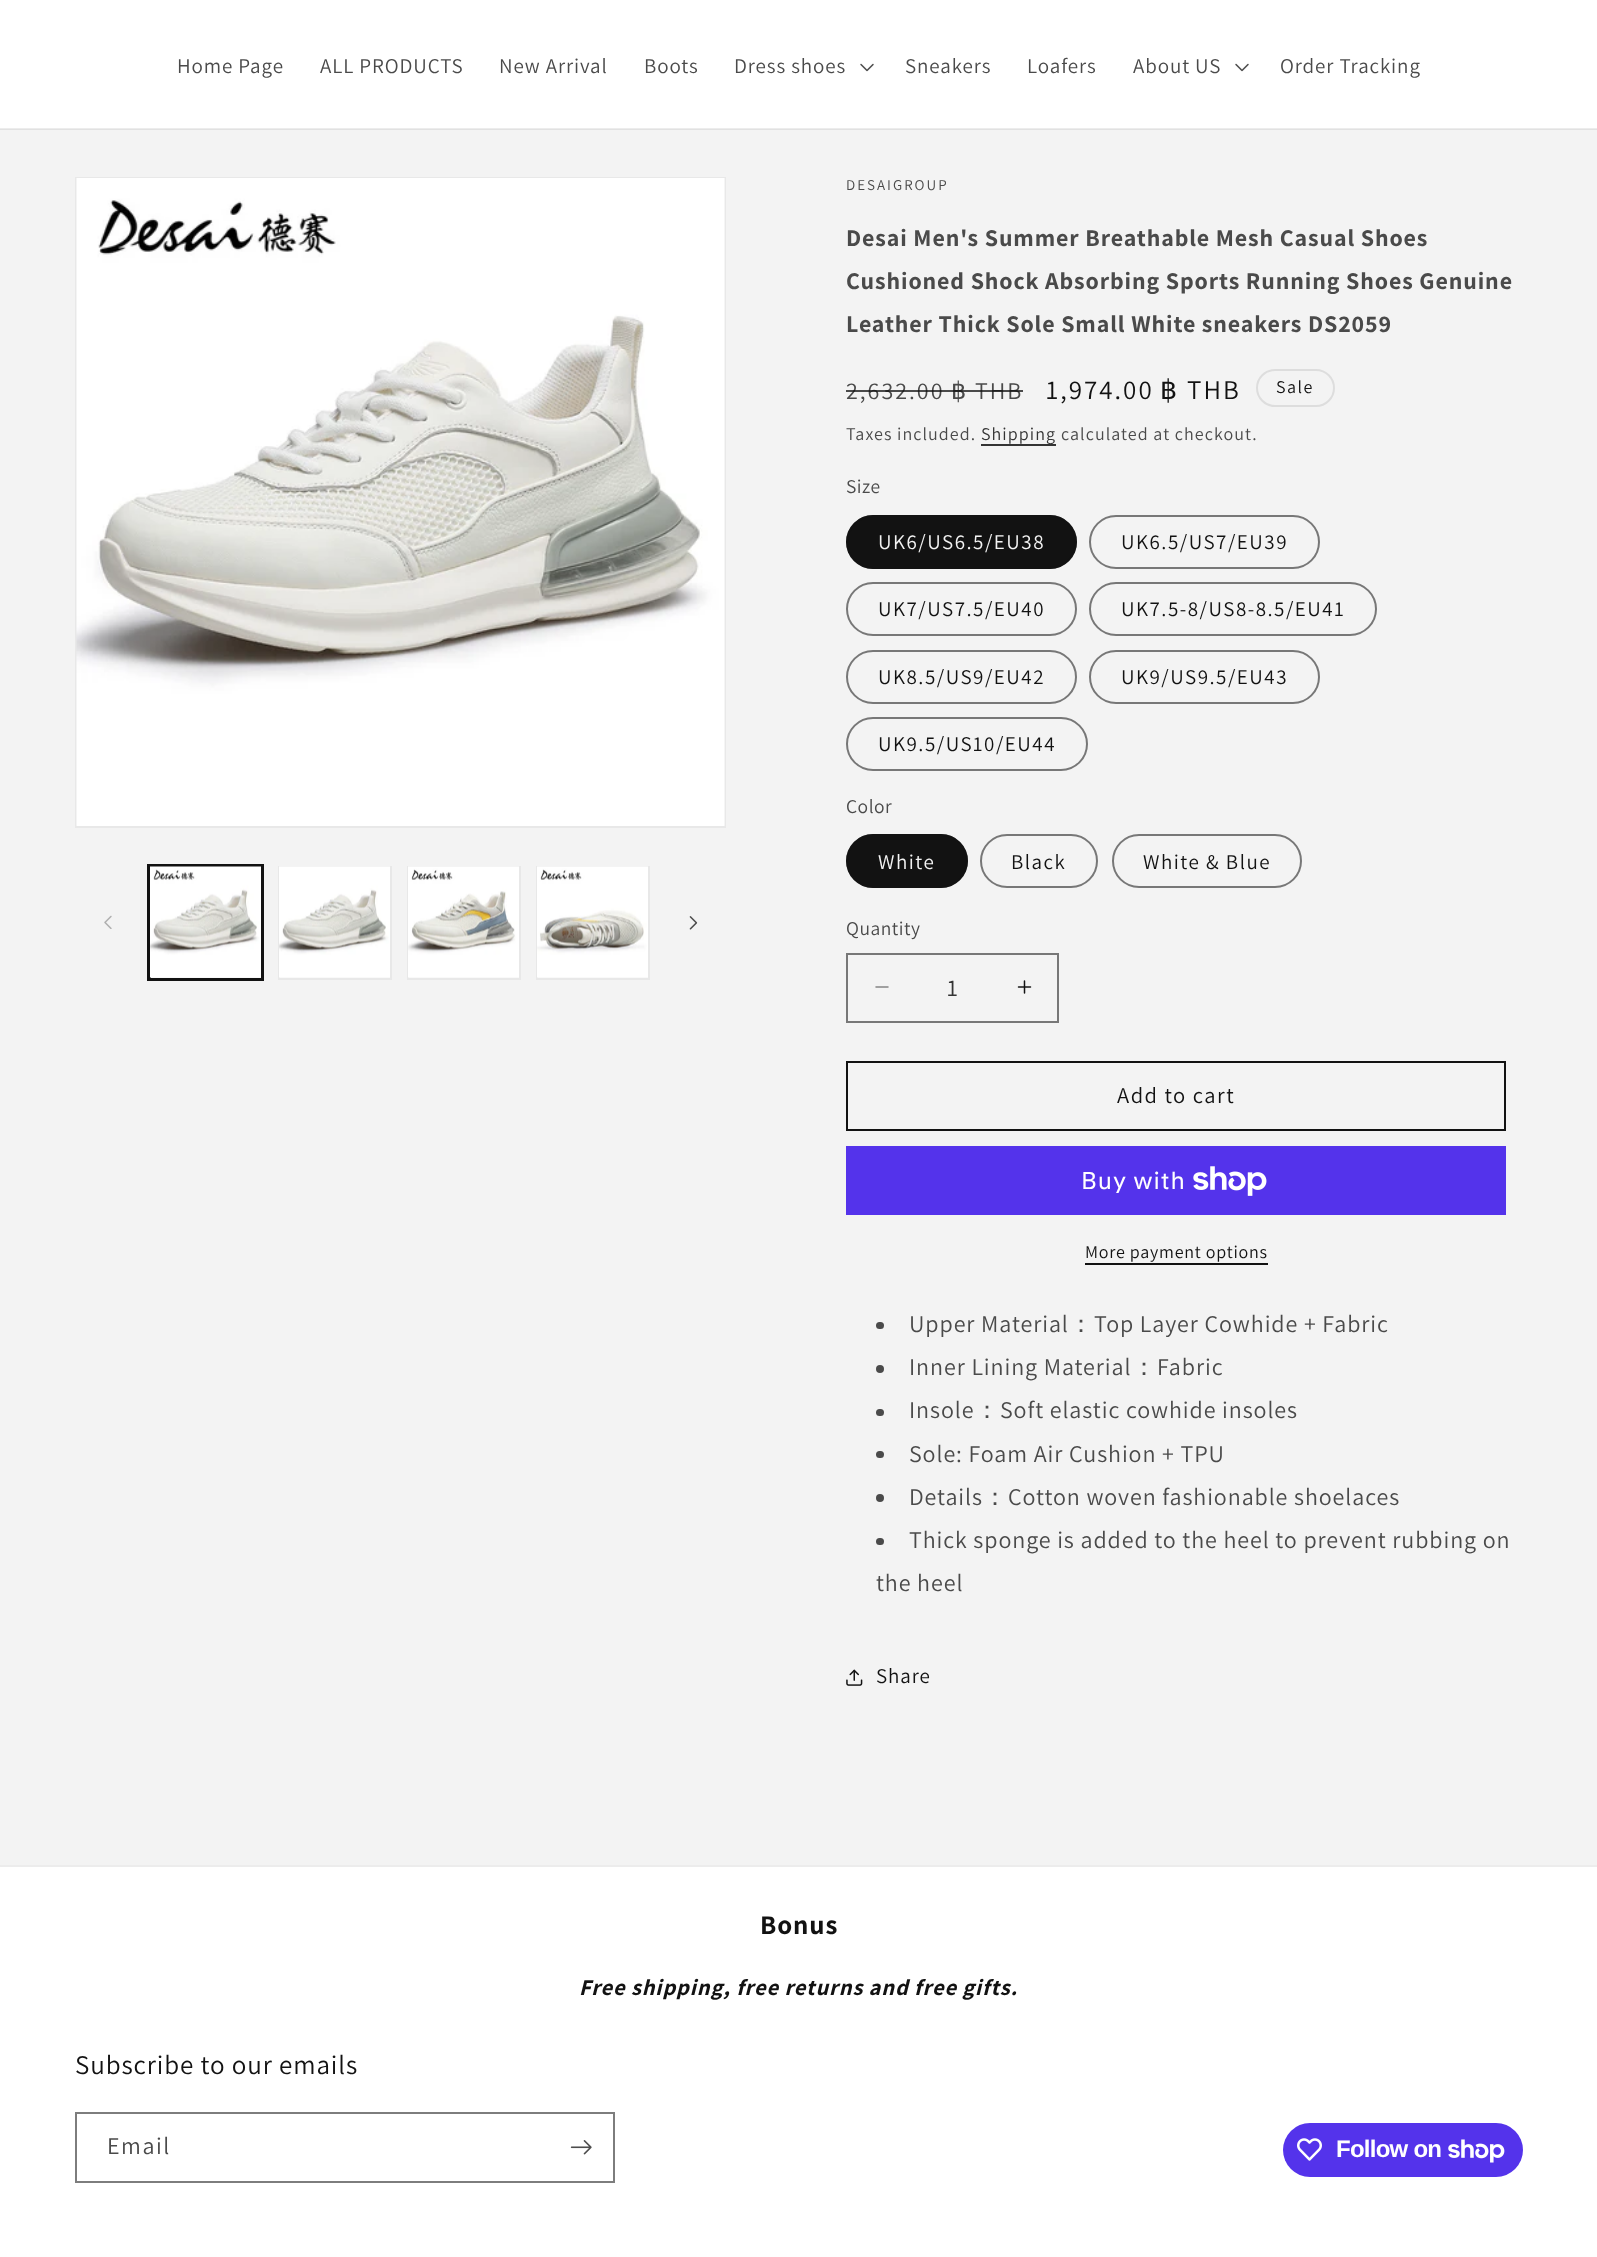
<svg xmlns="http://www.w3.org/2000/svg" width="1597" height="2257">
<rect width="100%" height="100%" fill="#fff"/>
<rect y="128" width="1597" height="1" fill="#ececec"/>
<text x="177" y="73" style="font-family:Assistant;font-size:21px;letter-spacing:0.9px;fill:#4a4a4a">Home Page</text>
<text x="320" y="73" style="font-family:Assistant;font-size:21px;letter-spacing:0.9px;fill:#4a4a4a">ALL PRODUCTS</text>
<text x="499" y="73" style="font-family:Assistant;font-size:21px;letter-spacing:0.9px;fill:#4a4a4a">New Arrival</text>
<text x="644" y="73" style="font-family:Assistant;font-size:21px;letter-spacing:0.9px;fill:#4a4a4a">Boots</text>
<text x="734" y="73" style="font-family:Assistant;font-size:21px;letter-spacing:0.9px;fill:#4a4a4a">Dress shoes</text>
<image x="860" y="63" width="14" height="9" href="media/1.png"/>
<text x="905" y="73" style="font-family:Assistant;font-size:21px;letter-spacing:0.9px;fill:#4a4a4a">Sneakers</text>
<text x="1027" y="73" style="font-family:Assistant;font-size:21px;letter-spacing:0.9px;fill:#4a4a4a">Loafers</text>
<text x="1133" y="73" style="font-family:Assistant;font-size:21px;letter-spacing:0.9px;fill:#4a4a4a">About US</text>
<image x="1235" y="63" width="14" height="9" href="media/1.png"/>
<text x="1280" y="73" style="font-family:Assistant;font-size:21px;letter-spacing:0.9px;fill:#4a4a4a">Order Tracking</text>
<rect y="130" width="1597" height="1735" fill="#f3f3f3"/>
<rect y="129" width="1597" height="1" fill="#e1e1e1"/>
<rect x="76" y="178" width="649" height="649" fill="none" stroke="#e8e8e8" stroke-width="2"/>
<image x="76" y="178" width="649" height="648" href="media/2.png"/>
<image x="104" y="915" width="8" height="14" href="media/3.png"/>
<rect x="148" y="865" width="115" height="115" fill="none" stroke="#121212" stroke-width="2"/>
<rect x="150" y="867" width="112" height="112" fill="none" stroke="#121212" stroke-width="2"/>
<image x="150" y="866" width="111" height="112" href="media/4.png"/>
<rect x="279" y="867" width="112" height="112" fill="none" stroke="#e8e8e8" stroke-width="2"/>
<image x="279" y="866" width="111" height="112" href="media/5.png"/>
<rect x="408" y="867" width="112" height="112" fill="none" stroke="#e8e8e8" stroke-width="2"/>
<image x="408" y="866" width="111" height="112" href="media/6.png"/>
<rect x="537" y="867" width="112" height="112" fill="none" stroke="#e8e8e8" stroke-width="2"/>
<image x="537" y="866" width="111" height="112" href="media/7.png"/>
<image x="689" y="916" width="9" height="14" href="media/8.png"/>
<text x="846" y="190" style="font-family:Assistant;font-size:15px;letter-spacing:2px;fill:#4a4a4a">DESAIGROUP</text>
<text x="846" y="246" style="font-family:Assistant;font-size:24px;font-weight:bold;letter-spacing:0.9px;fill:#4a4a4a">Desai Men's Summer Breathable Mesh Casual Shoes</text>
<text x="846" y="289" style="font-family:Assistant;font-size:24px;font-weight:bold;letter-spacing:0.9px;fill:#4a4a4a">Cushioned Shock Absorbing Sports Running Shoes Genuine</text>
<text x="846" y="332" style="font-family:Assistant;font-size:24px;font-weight:bold;letter-spacing:0.9px;fill:#4a4a4a">Leather Thick Sole Small White sneakers DS2059</text>
<text x="846" y="399" style="font-family:Assistant;font-size:24px;letter-spacing:2px;fill:#4a4a4a">2,632.00</text>
<text x="951" y="399" style="font-family:DejaVu Sans;font-size:24px;letter-spacing:2px;fill:#4a4a4a">฿</text>
<text x="975" y="399" style="font-family:Assistant;font-size:24px;letter-spacing:2px;fill:#4a4a4a">THB</text>
<rect x="846" y="390" width="177" height="2" fill="#121212bf"/>
<text x="1046" y="399" style="font-family:Assistant;font-size:27px;letter-spacing:2px;fill:#121212">1,974.00</text>
<text x="1160" y="399" style="font-family:DejaVu Sans;font-size:27px;letter-spacing:2px;fill:#121212">฿</text>
<text x="1187" y="399" style="font-family:Assistant;font-size:27px;letter-spacing:2px;fill:#121212">THB</text>
<rect x="1257" y="370" width="77" height="36" rx="18" fill="none" stroke="#ddd" stroke-width="2"/>
<text x="1276" y="393" style="font-family:Assistant;font-size:18px;letter-spacing:1.5px;fill:#121212">Sale</text>
<text x="846" y="440" style="font-family:Assistant;font-size:18px;letter-spacing:1.05px;fill:#4a4a4a">Taxes included.</text>
<rect x="981" y="444" width="75" height="2" fill="#343434"/>
<text x="981" y="440" style="font-family:Assistant;font-size:18px;letter-spacing:1.05px;fill:#343434">Shipping</text>
<text x="1061" y="440" style="font-family:Assistant;font-size:18px;letter-spacing:1.05px;fill:#4a4a4a">calculated at checkout.</text>
<text x="846" y="493" style="font-family:Assistant;font-size:19.5px;letter-spacing:0.5px;fill:#4a4a4a">Size</text>
<rect x="846" y="515" width="231" height="54" rx="27" fill="#121212"/>
<rect x="847" y="516" width="229" height="52" rx="26" fill="none" stroke="#1212128c" stroke-width="2"/>
<text x="878" y="549" style="font-family:Assistant;font-size:21px;letter-spacing:1.5px;fill:#f3f3f3">UK6/US6.5/EU38</text>
<rect x="1090" y="516" width="229" height="52" rx="26" fill="none" stroke="#777" stroke-width="2"/>
<text x="1121" y="549" style="font-family:Assistant;font-size:21px;letter-spacing:1.5px;fill:#121212">UK6.5/US7/EU39</text>
<rect x="847" y="583" width="229" height="52" rx="26" fill="none" stroke="#777" stroke-width="2"/>
<text x="878" y="616" style="font-family:Assistant;font-size:21px;letter-spacing:1.5px;fill:#121212">UK7/US7.5/EU40</text>
<rect x="1090" y="583" width="286" height="52" rx="26" fill="none" stroke="#777" stroke-width="2"/>
<text x="1121" y="616" style="font-family:Assistant;font-size:21px;letter-spacing:1.5px;fill:#121212">UK7.5-8/US8-8.5/EU41</text>
<rect x="847" y="651" width="229" height="52" rx="26" fill="none" stroke="#777" stroke-width="2"/>
<text x="878" y="684" style="font-family:Assistant;font-size:21px;letter-spacing:1.5px;fill:#121212">UK8.5/US9/EU42</text>
<rect x="1090" y="651" width="229" height="52" rx="26" fill="none" stroke="#777" stroke-width="2"/>
<text x="1121" y="684" style="font-family:Assistant;font-size:21px;letter-spacing:1.5px;fill:#121212">UK9/US9.5/EU43</text>
<rect x="847" y="718" width="240" height="52" rx="26" fill="none" stroke="#777" stroke-width="2"/>
<text x="878" y="751" style="font-family:Assistant;font-size:21px;letter-spacing:1.5px;fill:#121212">UK9.5/US10/EU44</text>
<text x="846" y="813" style="font-family:Assistant;font-size:19.5px;letter-spacing:0.5px;fill:#4a4a4a">Color</text>
<rect x="846" y="834" width="122" height="54" rx="27" fill="#121212"/>
<rect x="847" y="835" width="120" height="52" rx="26" fill="none" stroke="#1212128c" stroke-width="2"/>
<text x="878" y="869" style="font-family:Assistant;font-size:21px;letter-spacing:1.5px;fill:#f3f3f3">White</text>
<rect x="981" y="835" width="116" height="52" rx="26" fill="none" stroke="#777" stroke-width="2"/>
<text x="1011" y="869" style="font-family:Assistant;font-size:21px;letter-spacing:1.5px;fill:#121212">Black</text>
<rect x="1113" y="835" width="188" height="52" rx="26" fill="none" stroke="#777" stroke-width="2"/>
<text x="1143" y="869" style="font-family:Assistant;font-size:21px;letter-spacing:1.5px;fill:#121212">White &amp; Blue</text>
<text x="846" y="935" style="font-family:Assistant;font-size:19.5px;letter-spacing:0.5px;fill:#4a4a4a">Quantity</text>
<image x="875" y="986" width="14" height="2" href="media/9.png"/>
<image x="1017" y="980" width="15" height="14" href="media/10.png"/>
<rect x="847" y="954" width="211" height="68" fill="none" stroke="#777" stroke-width="2"/>
<text x="947" y="996" style="font-family:Assistant;font-size:24px;fill:#343434">1</text>
<rect x="847" y="1062" width="658" height="68" fill="none" stroke="#121212" stroke-width="2"/>
<text x="1117" y="1103" style="font-family:Assistant;font-size:22.5px;letter-spacing:1.5px;fill:#121212">Add to cart</text>
<rect x="846" y="1146" width="660" height="69" fill="#5433eb"/>
<text x="1081" y="1189" style="font-family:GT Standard;font-size:24px;letter-spacing:0.9px;fill:#fff">Buy with</text>
<image x="1193" y="1166" width="74" height="30" href="media/11.png"/>
<text x="1085" y="1258" style="font-family:Assistant;font-size:18px;letter-spacing:0.75px;fill:#121212">More payment options</text>
<rect x="1085" y="1263" width="183" height="2" fill="#121212"/>
<rect x="876" y="1322" width="8" height="7" rx="3.5" fill="#4a4a4a"/>
<text x="909" y="1332" style="font-family:Assistant;font-size:24px;letter-spacing:0.9px;fill:#4a4a4a">Upper Material</text>
<text x="1069" y="1332" style="font-family:WenQuanYi Zen Hei;font-size:24px;font-weight:500;letter-spacing:0.9px;fill:#4a4a4a">：</text>
<text x="1094" y="1332" style="font-family:Assistant;font-size:24px;letter-spacing:0.9px;fill:#4a4a4a">Top Layer Cowhide + Fabric</text>
<circle cx="880" cy="1369" r="4" fill="#4a4a4a"/>
<text x="909" y="1375" style="font-family:Assistant;font-size:24px;letter-spacing:0.9px;fill:#4a4a4a">Inner Lining Material</text>
<text x="1132" y="1375" style="font-family:WenQuanYi Zen Hei;font-size:24px;font-weight:500;letter-spacing:0.9px;fill:#4a4a4a">：</text>
<text x="1157" y="1375" style="font-family:Assistant;font-size:24px;letter-spacing:0.9px;fill:#4a4a4a">Fabric</text>
<rect x="876" y="1409" width="8" height="7" rx="3.5" fill="#4a4a4a"/>
<text x="909" y="1418" style="font-family:Assistant;font-size:24px;letter-spacing:0.9px;fill:#4a4a4a">Insole</text>
<text x="975" y="1418" style="font-family:WenQuanYi Zen Hei;font-size:24px;font-weight:500;letter-spacing:0.9px;fill:#4a4a4a">：</text>
<text x="1000" y="1418" style="font-family:Assistant;font-size:24px;letter-spacing:0.9px;fill:#4a4a4a">Soft elastic cowhide insoles</text>
<rect x="876" y="1451" width="8" height="7" rx="3.5" fill="#4a4a4a"/>
<text x="909" y="1462" style="font-family:Assistant;font-size:24px;letter-spacing:0.9px;fill:#4a4a4a">Sole: Foam Air Cushion + TPU</text>
<circle cx="880" cy="1498" r="4" fill="#4a4a4a"/>
<text x="909" y="1505" style="font-family:Assistant;font-size:24px;letter-spacing:0.9px;fill:#4a4a4a">Details</text>
<text x="983" y="1505" style="font-family:WenQuanYi Zen Hei;font-size:24px;font-weight:500;letter-spacing:0.9px;fill:#4a4a4a">：</text>
<text x="1008" y="1505" style="font-family:Assistant;font-size:24px;letter-spacing:0.9px;fill:#4a4a4a">Cotton woven fashionable shoelaces</text>
<rect x="876" y="1538" width="8" height="7" rx="3.5" fill="#4a4a4a"/>
<text x="909" y="1548" style="font-family:Assistant;font-size:24px;letter-spacing:0.9px;fill:#4a4a4a">Thick sponge is added to the heel to prevent rubbing on</text>
<text x="876" y="1591" style="font-family:Assistant;font-size:24px;letter-spacing:0.9px;fill:#4a4a4a">the heel</text>
<image x="846" y="1669" width="17" height="17" href="media/12.png"/>
<text x="876" y="1683" style="font-family:Assistant;font-size:21px;letter-spacing:0.9px;fill:#121212">Share</text>
<rect y="1865" width="1597" height="2" fill="#ececec"/>
<text x="760" y="1934" style="font-family:Assistant;font-size:27px;font-weight:bold;letter-spacing:0.9px;fill:#121212">Bonus</text>
<text x="579" y="1995" style="font-family:Assistant;font-size:22.5px;font-weight:bold;font-style:italic;letter-spacing:0.9px;fill:#121212">Free shipping, free returns and free gifts.</text>
<text x="75" y="2074" style="font-family:Assistant;font-size:27px;letter-spacing:0.9px;fill:#121212">Subscribe to our emails</text>
<rect x="76" y="2113" width="538" height="69" fill="none" stroke="#7d7d7d" stroke-width="2"/>
<text x="107" y="2154" style="font-family:Assistant;font-size:24px;letter-spacing:1.5px;fill:#4a4a4a">Email</text>
<image x="570" y="2140" width="22" height="15" href="media/13.png"/>
<rect x="1283" y="2123" width="240" height="54" rx="27" fill="#5433eb"/>
<image x="1297" y="2138" width="25" height="23" href="media/14.png"/>
<text x="1336" y="2157" style="font-family:Liberation Sans;font-size:24px;font-weight:bold;letter-spacing:-0.75px;fill:#fff">Follow on</text>
<image x="1448" y="2139" width="57" height="24" href="media/15.png"/>
</svg>
